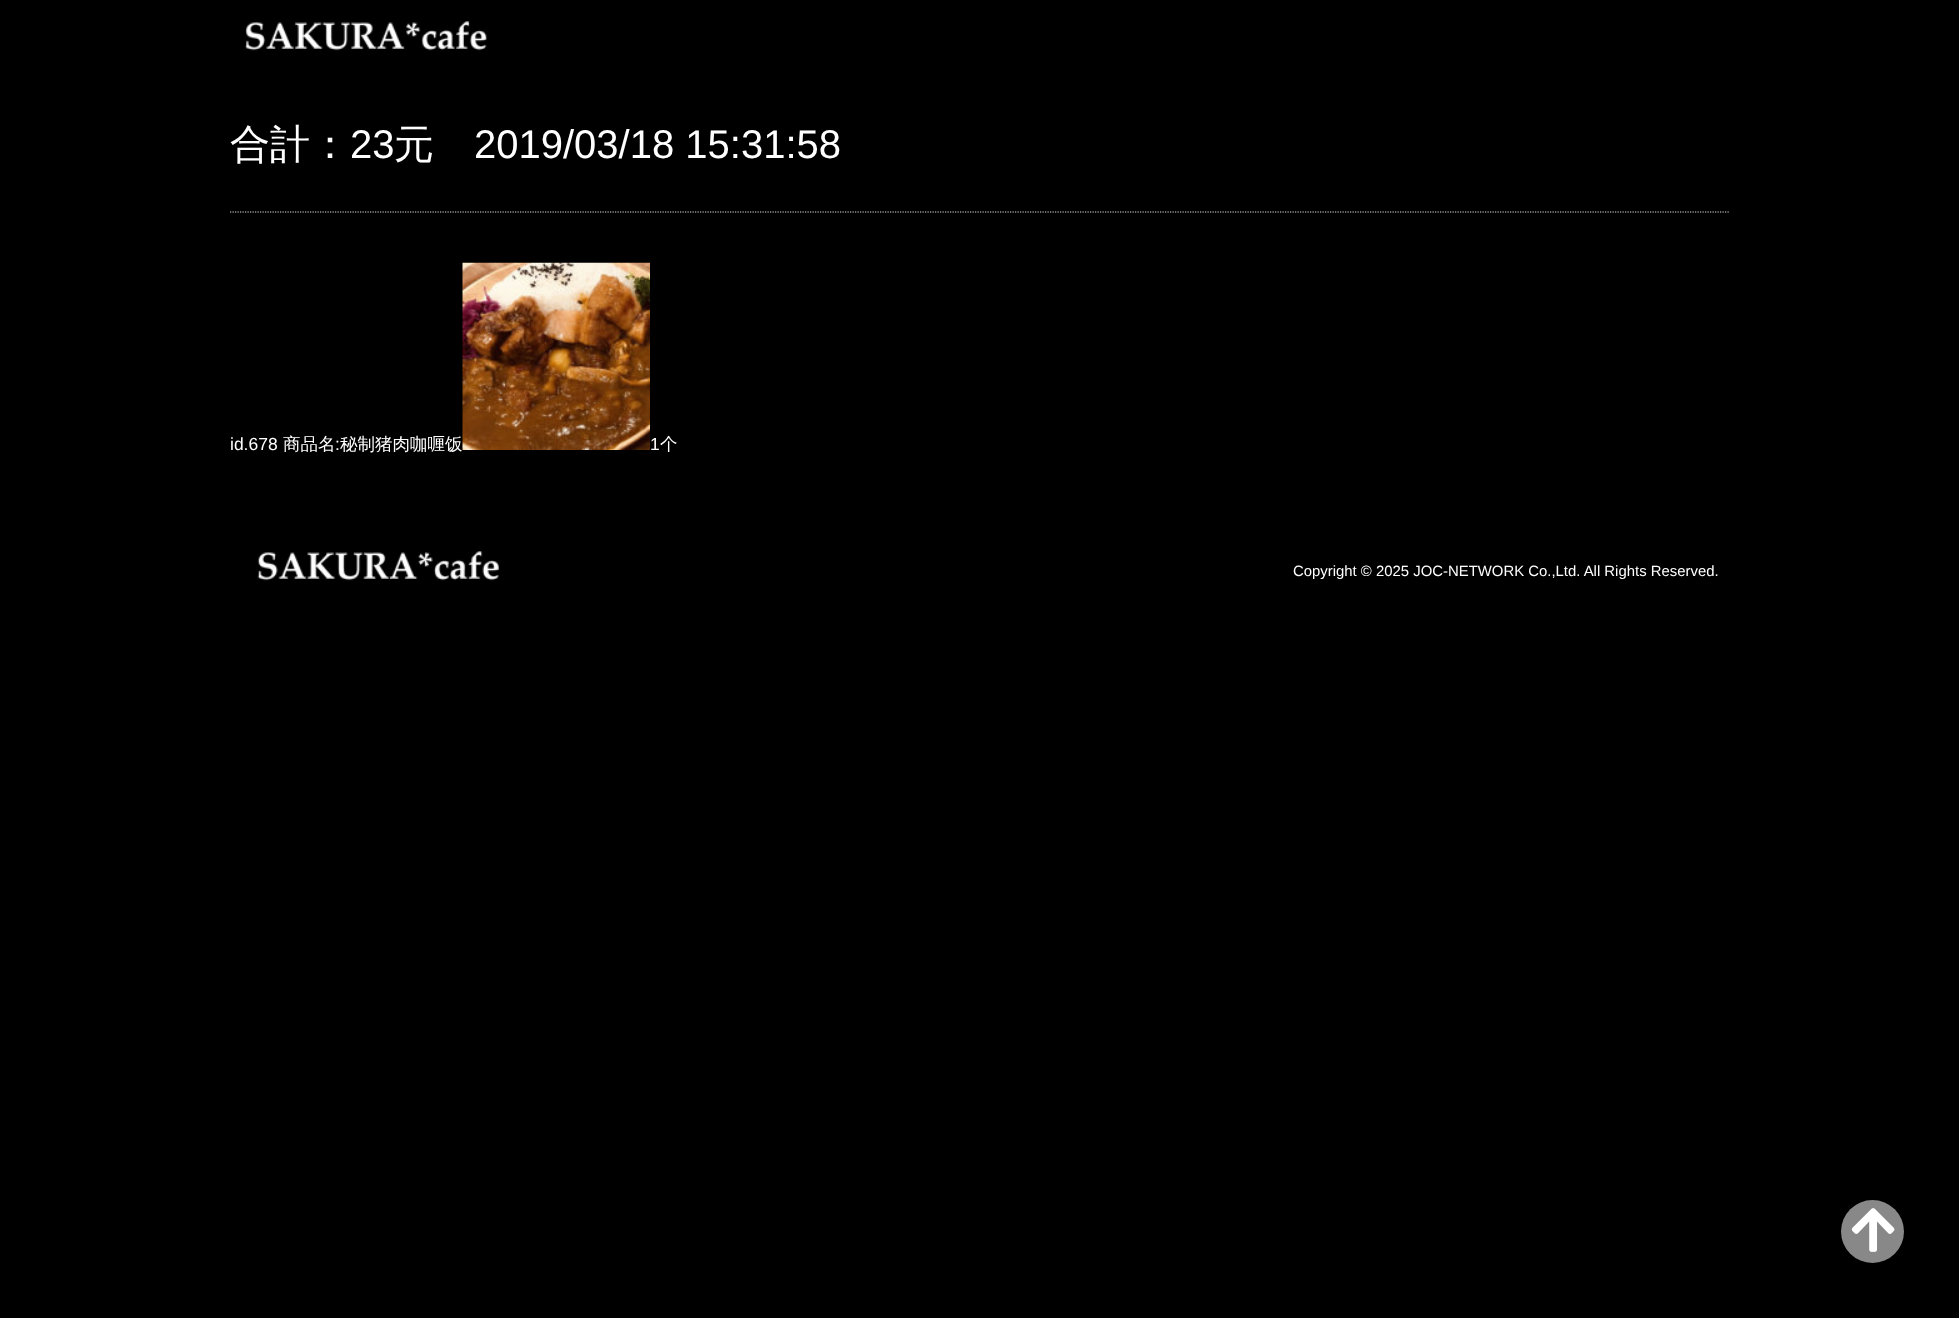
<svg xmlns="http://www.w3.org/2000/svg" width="1959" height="1318">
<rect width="100%" height="100%" fill="#000"/>
<image x="245" y="21" width="242" height="30" href="media/1.png"/>
<path d="M230 212h1500" fill="none" stroke="#ddd" stroke-width="1.2" stroke-dasharray="1.25 1.25"/>
<text x="230" y="158" style="font-family:WenQuanYi Zen Hei;font-size:40px;font-weight:500;fill:#fff">合計：</text>
<text x="350" y="158" style="font-family:Liberation Sans;font-size:40px;fill:#fff">23</text>
<text x="394" y="158" style="font-family:WenQuanYi Zen Hei;font-size:40px;font-weight:500;fill:#fff">元</text>
<text x="474" y="158" style="font-family:Liberation Sans;font-size:40px;fill:#fff">2019/03/18 15:31:58</text>
<text x="230" y="450" style="font-family:Liberation Sans;font-size:17.5px;fill:#fff">id.678</text>
<text x="283" y="450" style="font-family:WenQuanYi Zen Hei;font-size:17.5px;font-weight:500;fill:#fff">商品名</text>
<text x="335" y="450" style="font-family:Liberation Sans;font-size:17.5px;fill:#fff">:</text>
<text x="340" y="450" style="font-family:WenQuanYi Zen Hei;font-size:17.5px;font-weight:500;fill:#fff">秘制猪肉咖喱饭</text>
<image x="462" y="262" width="188" height="188" href="media/2.png"/>
<text x="650" y="450" style="font-family:Liberation Sans;font-size:17.5px;fill:#fff">1</text>
<text x="660" y="450" style="font-family:WenQuanYi Zen Hei;font-size:17.5px;font-weight:500;fill:#fff">个</text>
<image x="257" y="551" width="243" height="30" href="media/3.png"/>
<text x="1293" y="576" style="font-family:Liberation Sans;font-size:14.9px;fill:#fff">Copyright © 2025 JOC-NETWORK Co.,Ltd. All Rights Reserved.</text>
<circle cx="1872.5" cy="1231.5" r="31.5" fill="#888"/>
<image x="1851" y="1208" width="44" height="44" href="media/4.png"/>
</svg>
